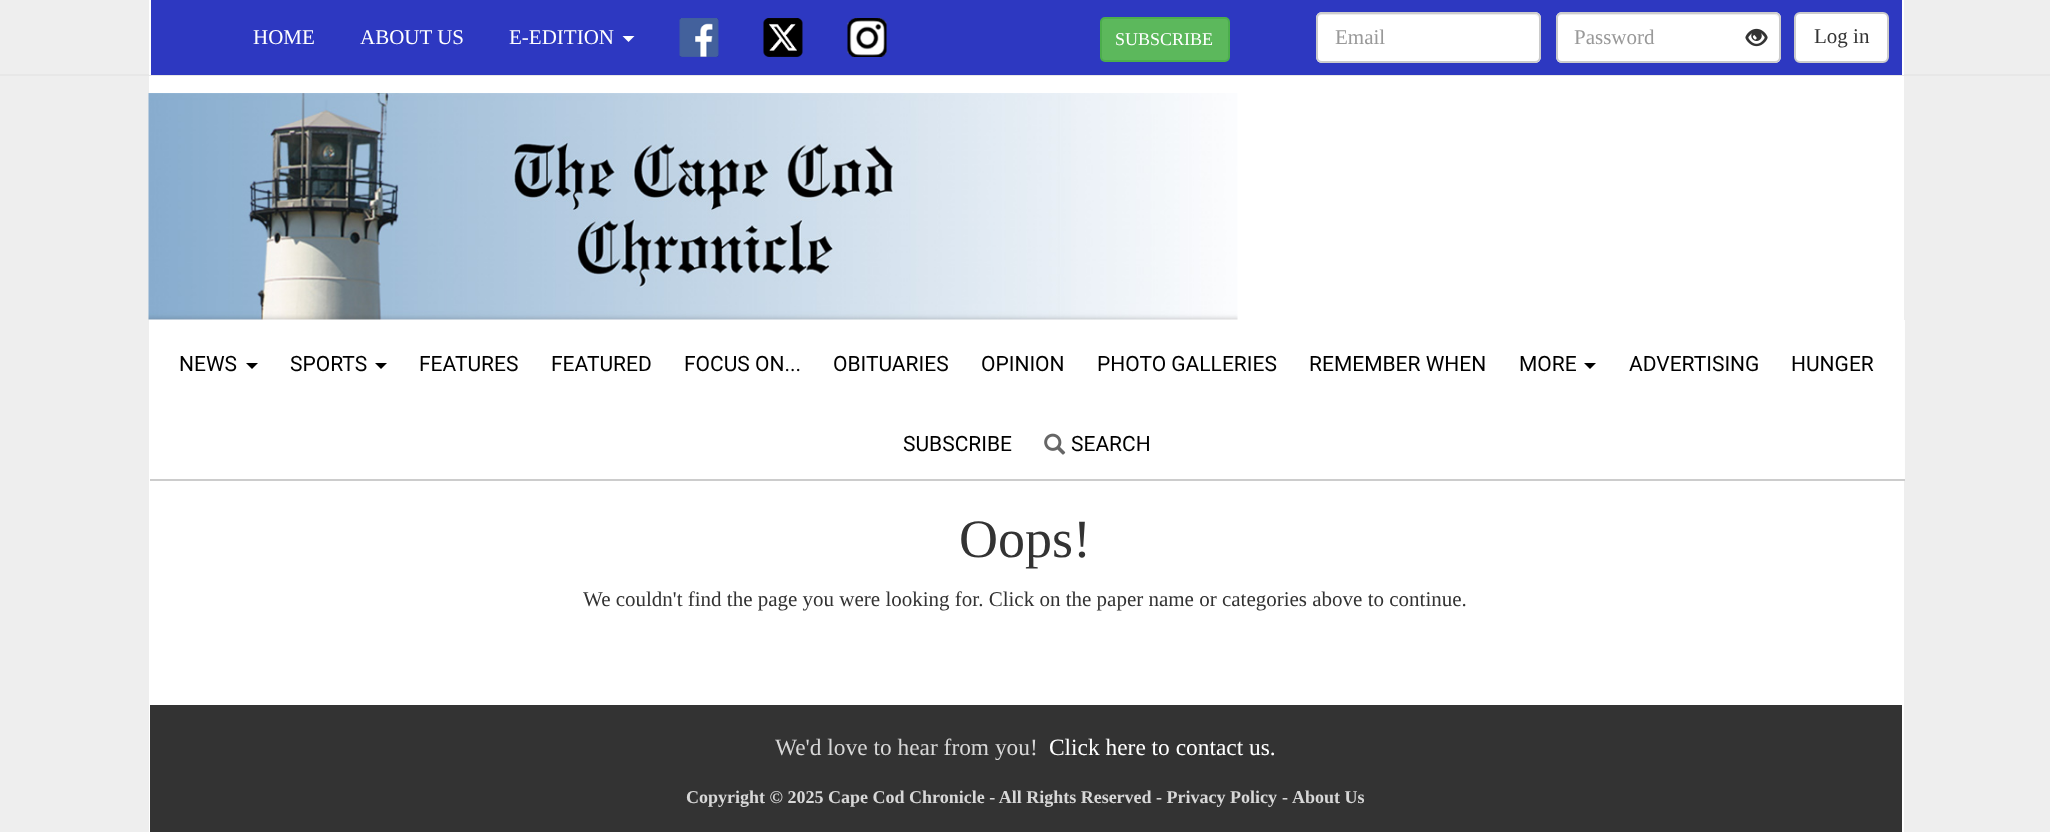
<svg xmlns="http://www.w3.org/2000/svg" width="2050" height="832">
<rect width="100%" height="100%" fill="#eee"/>
<rect x="1904" y="320" width="1" height="159" fill="#fefefe"/>
<rect x="1902" y="75" width="2" height="757" fill="#fff"/>
<rect x="149" y="75" width="1" height="757" fill="#fff"/>
<rect x="150" y="76" width="1752" height="629" fill="#fff"/>
<rect y="74" width="2050" height="2" fill="#e7e7e7"/>
<rect x="151" width="1751" height="75" fill="#2d38c1"/>
<rect x="1902" width="2" height="75" fill="#fff"/>
<rect x="149" width="2" height="75" fill="#fff"/>
<text x="253" y="44" style="font-family:Liberation Serif;font-size:21px;fill:#fff">HOME</text>
<text x="360" y="44" style="font-family:Liberation Serif;font-size:21px;fill:#fff">ABOUT US</text>
<text x="509" y="44" style="font-family:Liberation Serif;font-size:21px;fill:#fff">E-EDITION</text>
<path d="M622.5 36h12l-6 6z" fill="#fff"/>
<image x="679" y="18" width="40" height="39" href="media/1.png"/>
<image x="763" y="18" width="40" height="39" href="media/2.png"/>
<image x="847" y="18" width="40" height="39" href="media/3.png"/>
<rect x="1101" y="18" width="128" height="43" rx="4" fill="#5cb85c" stroke="#4cae4c" stroke-width="2"/>
<text x="1115" y="45" style="font-family:Liberation Serif;font-size:18px;fill:#fff">SUBSCRIBE</text>
<rect x="1316" y="12" width="225" height="51" rx="6" fill="#fff"/>
<path d="M1322 15h212c3 0 5 2 5 5v-1c0-3-2-5-5-5h-212c-3 0-5 2-5 5v1c0-3 2-5 5-5z" fill="#ececec"/>
<rect x="1317" y="13" width="223" height="49" rx="5" fill="none" stroke="#ccc" stroke-width="2"/>
<text x="1335" y="44" style="font-family:Liberation Serif;font-size:21px;fill:#999">Email</text>
<rect x="1556" y="12" width="225" height="51" rx="6" fill="#fff"/>
<path d="M1562 15h212c3 0 5 2 5 5v-1c0-3-2-5-5-5h-212c-3 0-5 2-5 5v1c0-3 2-5 5-5z" fill="#ececec"/>
<rect x="1557" y="13" width="223" height="49" rx="5" fill="none" stroke="#ccc" stroke-width="2"/>
<text x="1574" y="44" style="font-family:Liberation Serif;font-size:21px;fill:#999">Password</text>
<image x="1745" y="28" width="23" height="19" href="media/4.png"/>
<rect x="1795" y="13" width="93" height="49" rx="5" fill="#fff" stroke="#ccc" stroke-width="2"/>
<text x="1814" y="43" style="font-family:Liberation Serif;font-size:21px;fill:#333">Log in</text>
<image x="148" y="93" width="1090" height="227" href="media/5.png"/>
<rect x="150" y="479" width="1755" height="2" fill="#ccc"/>
<text x="179" y="371" style="font-family:Roboto;font-size:21px;fill:#000">NEWS</text>
<path d="M246 363h12l-6 6z" fill="#000"/>
<text x="290" y="371" style="font-family:Roboto;font-size:21px;fill:#000">SPORTS</text>
<path d="M375 363h12l-6 6z" fill="#000"/>
<text x="419" y="371" style="font-family:Roboto;font-size:21px;fill:#000">FEATURES</text>
<text x="551" y="371" style="font-family:Roboto;font-size:21px;fill:#000">FEATURED</text>
<text x="684" y="371" style="font-family:Roboto;font-size:21px;fill:#000">FOCUS ON...</text>
<text x="833" y="371" style="font-family:Roboto;font-size:21px;fill:#000">OBITUARIES</text>
<text x="981" y="371" style="font-family:Roboto;font-size:21px;fill:#000">OPINION</text>
<text x="1097" y="371" style="font-family:Roboto;font-size:21px;fill:#000">PHOTO GALLERIES</text>
<text x="1309" y="371" style="font-family:Roboto;font-size:21px;fill:#000">REMEMBER WHEN</text>
<text x="1519" y="371" style="font-family:Roboto;font-size:21px;fill:#000">MORE</text>
<path d="M1584 363h12l-6 6z" fill="#000"/>
<text x="1629" y="371" style="font-family:Roboto;font-size:21px;fill:#000">ADVERTISING</text>
<text x="1791" y="371" style="font-family:Roboto;font-size:21px;fill:#000">HUNGER</text>
<text x="903" y="451" style="font-family:Roboto;font-size:21px;fill:#000">SUBSCRIBE</text>
<image x="1044" y="433" width="22" height="22" href="media/6.png"/>
<text x="1071" y="451" style="font-family:Roboto;font-size:21px;fill:#000">SEARCH</text>
<text x="959" y="557" style="font-family:Liberation Serif;font-size:54px;fill:#333">Oops!</text>
<text x="583" y="606" style="font-family:Liberation Serif;font-size:21px;fill:#333">We couldn't find the page you were looking for. Click on the paper name or categories above to continue.</text>
<rect x="150" y="705" width="1752" height="127" fill="#333"/>
<text x="775" y="755" style="font-family:Liberation Serif;font-size:23.4px;fill:#d7d7d7">We'd love to hear from you!</text>
<text x="1049" y="755" style="font-family:Liberation Serif;font-size:23.4px;fill:#fff">Click here to contact us.</text>
<text x="686" y="803" style="font-family:Liberation Serif;font-size:18px;font-weight:bold;fill:#d7d7d7">Copyright © 2025 Cape Cod Chronicle - All Rights Reserved - Privacy Policy</text>
<text x="1282" y="803" style="font-family:Liberation Serif;font-size:18px;font-weight:bold;fill:#d7d7d7">-</text>
<text x="1292" y="803" style="font-family:Liberation Serif;font-size:18px;font-weight:bold;fill:#d7d7d7">About Us</text>
</svg>
